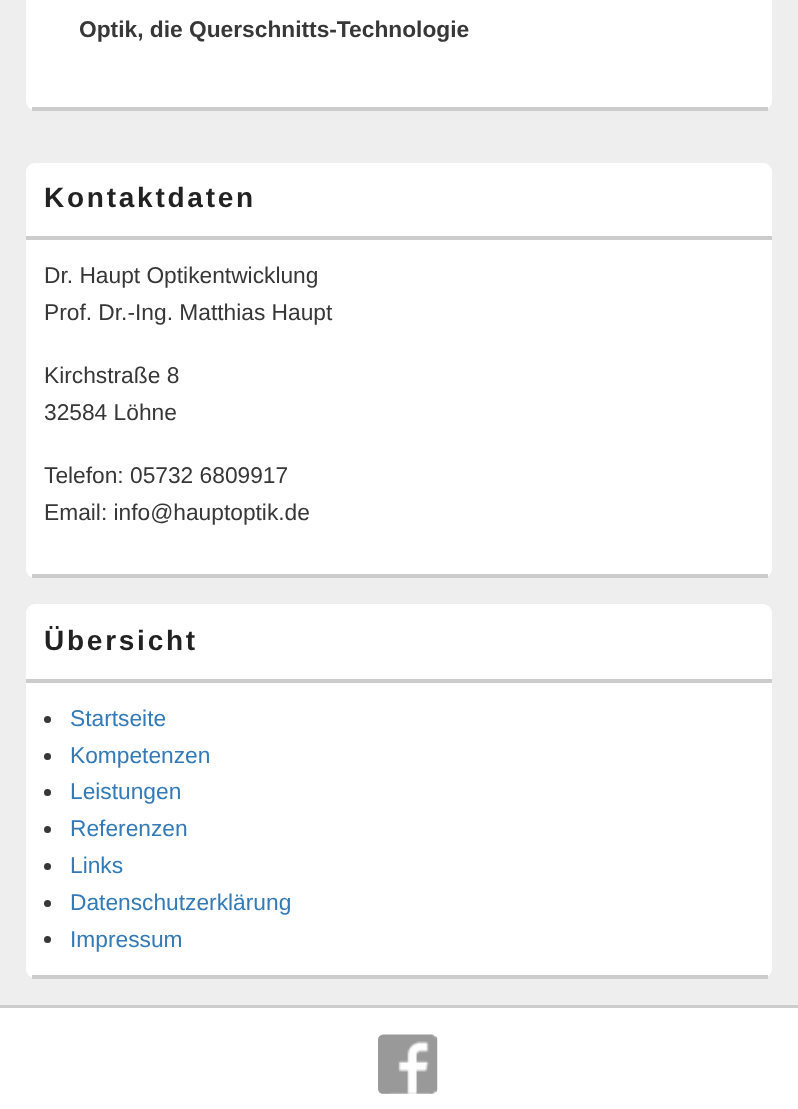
<svg xmlns="http://www.w3.org/2000/svg" width="798" height="1109">
<rect width="100%" height="100%" fill="#eee"/>
<rect x="26" y="-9" width="746" height="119" rx="9" fill="#fff"/>
<rect x="32" y="107" width="736" height="4" fill="#ccc"/>
<text x="79" y="37" style="font-family:Liberation Sans;font-size:22.75px;font-weight:bold;fill:#373737">Optik, die Querschnitts-Technologie</text>
<rect x="26" y="163" width="746" height="415" rx="9" fill="#fff"/>
<rect x="32" y="574" width="736" height="4" fill="#ccc"/>
<rect x="26" y="236" width="746" height="4" fill="#ccc"/>
<text x="44" y="207" style="font-family:Liberation Sans;font-size:28px;font-weight:bold;letter-spacing:2.75px;fill:#222">Kontaktdaten</text>
<text x="44" y="283" style="font-family:Liberation Sans;font-size:22.75px;fill:#373737">Dr. Haupt Optikentwicklung</text>
<text x="44" y="320" style="font-family:Liberation Sans;font-size:22.75px;fill:#373737">Prof. Dr.-Ing. Matthias Haupt</text>
<text x="44" y="383" style="font-family:Liberation Sans;font-size:22.75px;fill:#373737">Kirchstraße 8</text>
<text x="44" y="420" style="font-family:Liberation Sans;font-size:22.75px;fill:#373737">32584 Löhne</text>
<text x="44" y="483" style="font-family:Liberation Sans;font-size:22.75px;fill:#373737">Telefon: 05732 6809917</text>
<text x="44" y="520" style="font-family:Liberation Sans;font-size:22.75px;fill:#373737">Email: info@hauptoptik.de</text>
<rect x="26" y="604" width="746" height="374" rx="9" fill="#fff"/>
<rect x="32" y="975" width="736" height="4" fill="#ccc"/>
<rect x="26" y="679" width="746" height="4" fill="#ccc"/>
<text x="44" y="650" style="font-family:Liberation Sans;font-size:28px;font-weight:bold;letter-spacing:2.75px;fill:#222">Übersicht</text>
<circle cx="47.5" cy="719.5" r="3.5" fill="#373737"/>
<text x="70" y="726" style="font-family:Liberation Sans;font-size:22.75px;fill:#337ab7">Startseite</text>
<circle cx="47.5" cy="756.5" r="3.5" fill="#373737"/>
<text x="70" y="763" style="font-family:Liberation Sans;font-size:22.75px;fill:#337ab7">Kompetenzen</text>
<circle cx="47.5" cy="792.5" r="3.5" fill="#373737"/>
<text x="70" y="799" style="font-family:Liberation Sans;font-size:22.75px;fill:#337ab7">Leistungen</text>
<circle cx="47.5" cy="829.5" r="3.5" fill="#373737"/>
<text x="70" y="836" style="font-family:Liberation Sans;font-size:22.75px;fill:#337ab7">Referenzen</text>
<circle cx="47.5" cy="866.5" r="3.5" fill="#373737"/>
<text x="70" y="873" style="font-family:Liberation Sans;font-size:22.75px;fill:#337ab7">Links</text>
<circle cx="47.5" cy="903.5" r="3.5" fill="#373737"/>
<text x="70" y="910" style="font-family:Liberation Sans;font-size:22.75px;fill:#337ab7">Datenschutzerklärung</text>
<circle cx="47.5" cy="939.5" r="3.5" fill="#373737"/>
<text x="70" y="947" style="font-family:Liberation Sans;font-size:22.75px;fill:#337ab7">Impressum</text>
<rect y="1005" width="798" height="3" fill="#ccc"/>
<rect y="1008" width="798" height="101" fill="#fff"/>
<image x="378" y="1034" width="60" height="60" href="media/1.png"/>
</svg>
